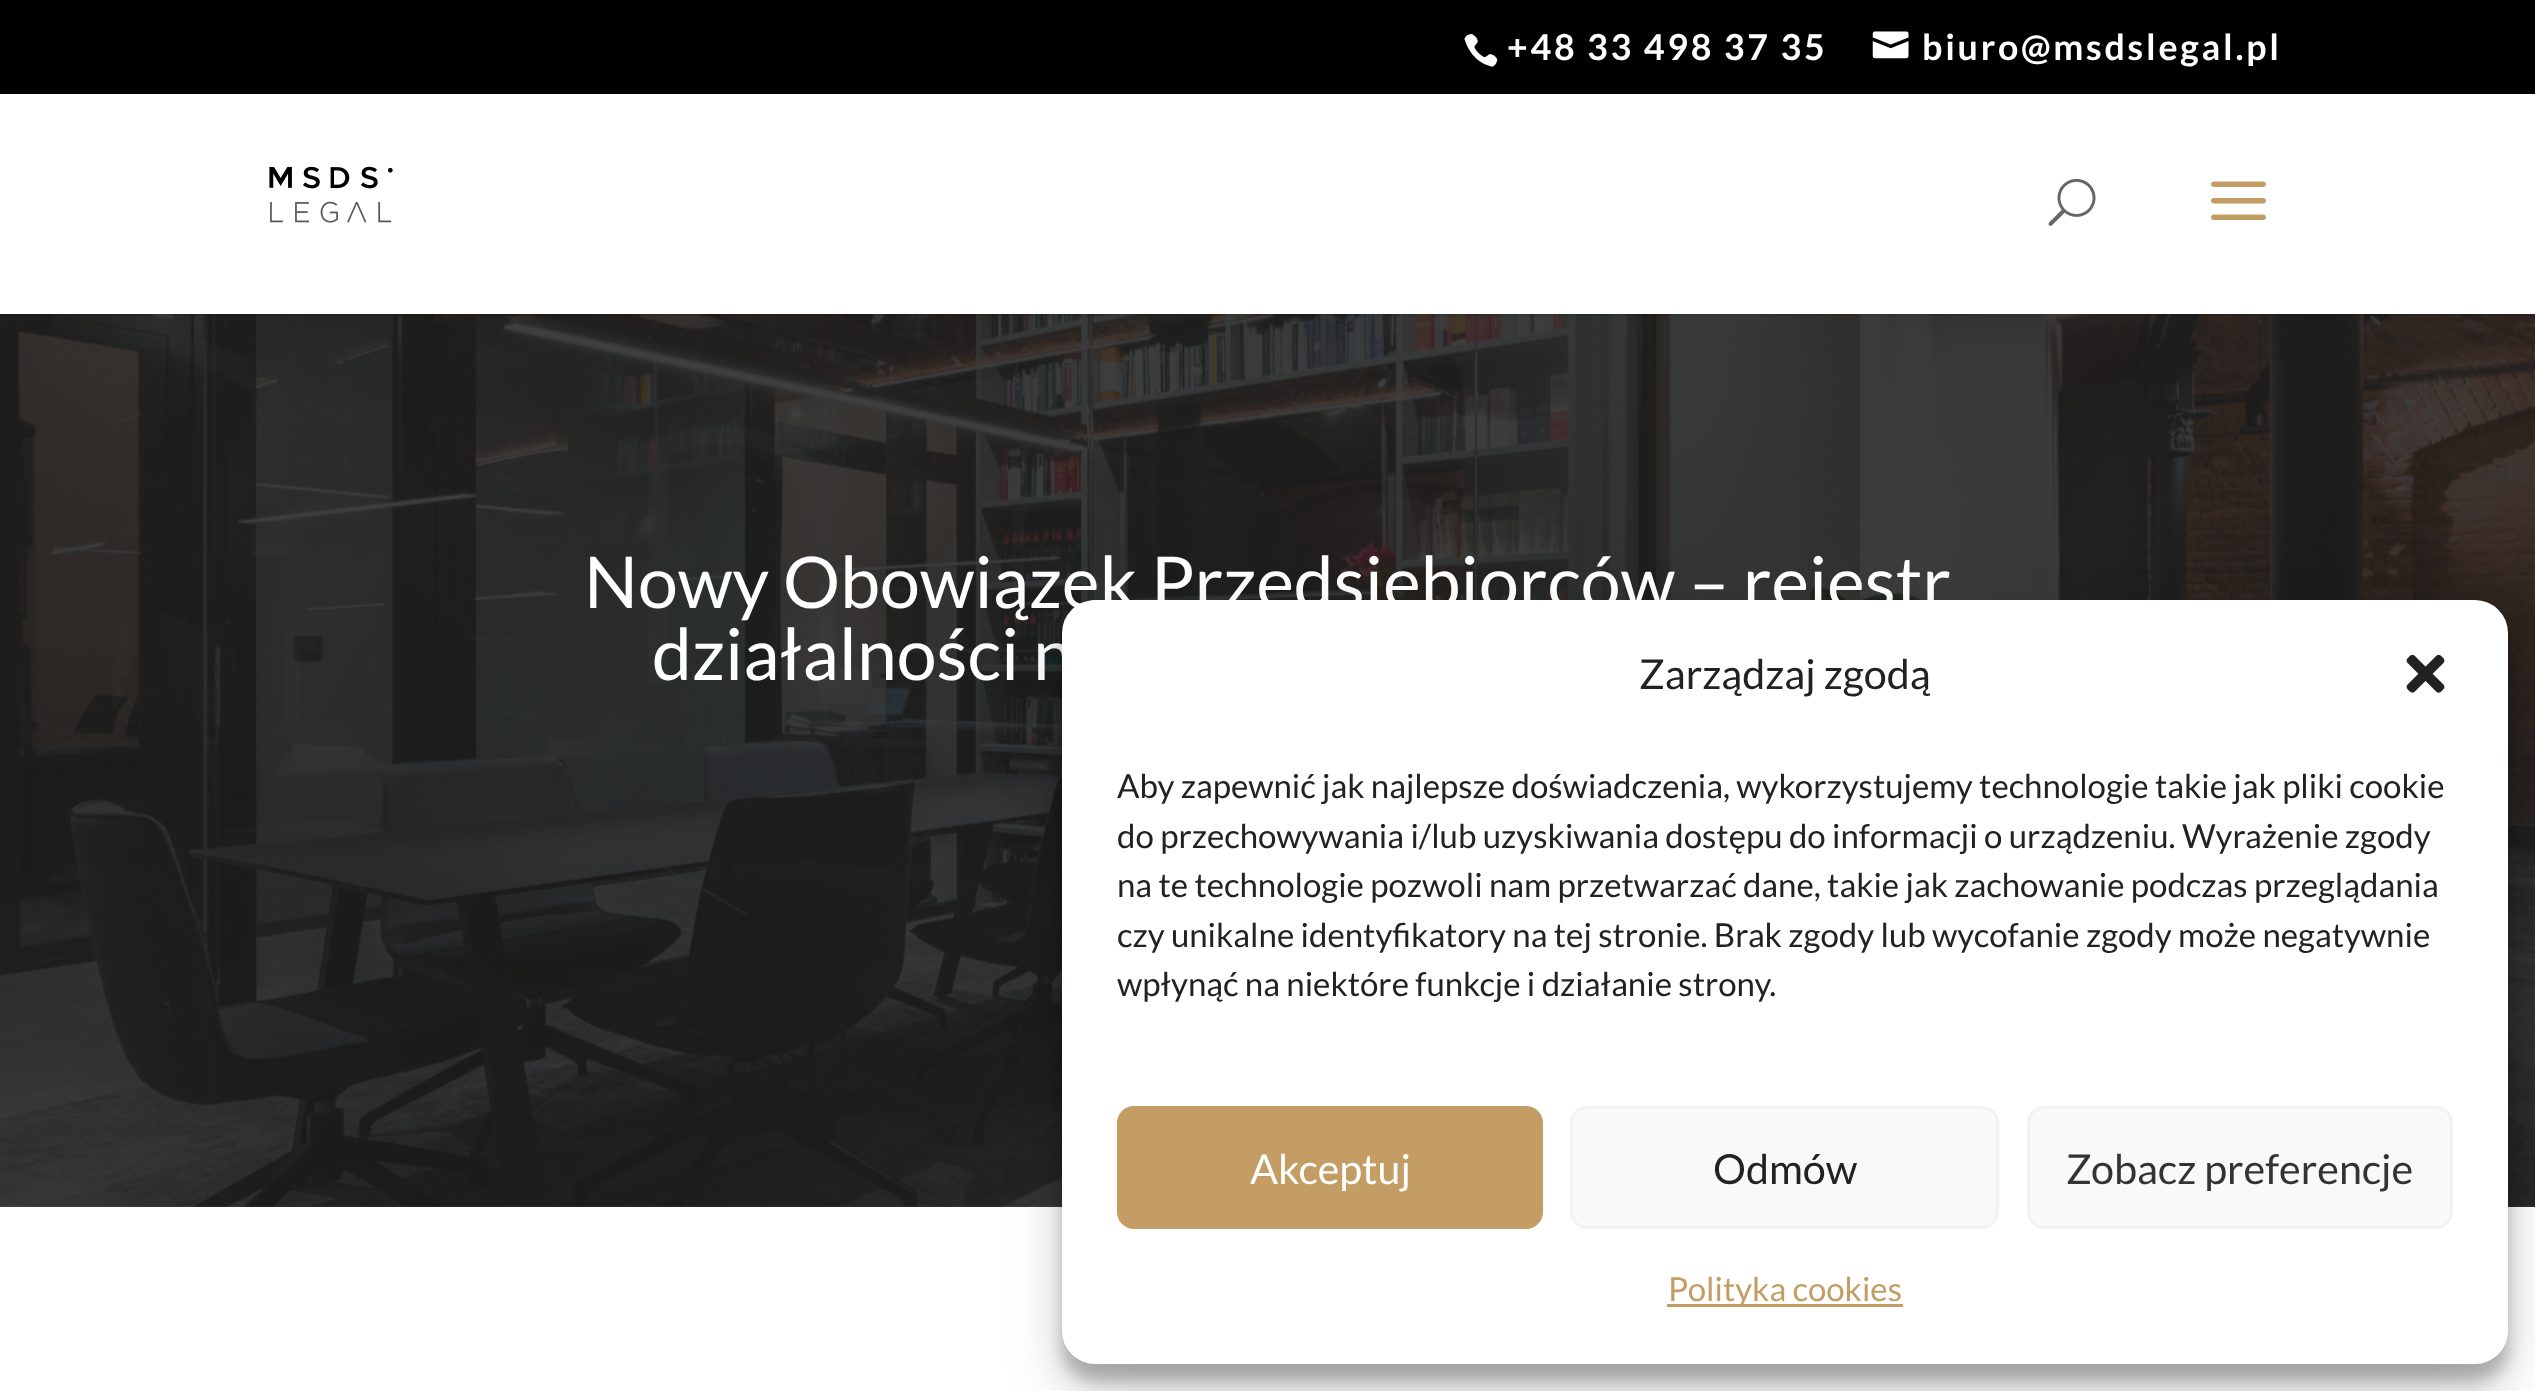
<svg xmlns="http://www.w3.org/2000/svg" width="2535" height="1391">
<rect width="100%" height="100%" fill="#fff"/>
<rect width="2535" height="94" fill="#000"/>
<image x="1464" y="34" width="34" height="33" href="media/1.png"/>
<text x="1507" y="60" style="font-family:Lato;font-size:35.75px;font-weight:bold;letter-spacing:2.75px;fill:#fff">+48 33 498 37 35</text>
<image x="1872" y="31" width="37" height="28" href="media/2.png"/>
<text x="1922" y="60" style="font-family:Lato;font-size:35.75px;font-weight:bold;letter-spacing:2.75px;fill:#fff">biuro@msdslegal.pl</text>
<image x="0" y="314" width="2535" height="893" href="media/6.png"/>
<path d="M0 314v2h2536v-220v218z" fill="#0000001a"/>
<image x="269" y="166" width="124" height="57" href="media/3.png"/>
<image x="2048" y="178" width="48" height="48" href="media/4.png"/>
<image x="2211" y="181" width="55" height="39" href="media/5.png"/>
<text x="584" y="608" style="font-family:Lato;font-size:71.5px;fill:#fff">Nowy Obowiązek Przedsiębiorców – rejestr</text>
<text x="652" y="680" style="font-family:Lato;font-size:71.5px;fill:#fff">działalności n</text>
<rect x="1062" y="616" width="1446" height="765" rx="33" fill="#0000003b" filter="blur(8px)"/>
<rect x="1062" y="627" width="1446" height="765" rx="33" fill="#00000030" filter="blur(27.5px)"/>
<rect x="1062" y="600" width="1446" height="764" rx="33" fill="#fff"/>
<text x="1639" y="689" style="font-family:Lato;font-size:41.25px;fill:#222">Zarządzaj zgodą</text>
<image x="2406" y="654" width="39" height="39" href="media/7.png"/>
<text x="1117" y="798" style="font-family:Lato;font-size:33px;fill:#222">Aby zapewnić jak najlepsze doświadczenia, wykorzystujemy technologie takie jak pliki cookie</text>
<text x="1117" y="848" style="font-family:Lato;font-size:33px;fill:#222">do przechowywania i/lub uzyskiwania dostępu do informacji o urządzeniu. Wyrażenie zgody</text>
<text x="1117" y="897" style="font-family:Lato;font-size:33px;fill:#222">na te technologie pozwoli nam przetwarzać dane, takie jak zachowanie podczas przeglądania</text>
<text x="1117" y="947" style="font-family:Lato;font-size:33px;fill:#222">czy unikalne identyfikatory na tej stronie. Brak zgody lub wycofanie zgody może negatywnie</text>
<text x="1117" y="996" style="font-family:Lato;font-size:33px;fill:#222">wpłynąć na niektóre funkcje i działanie strony.</text>
<rect x="1118.5" y="1107.5" width="423" height="120" rx="15.5" fill="#c39d63" stroke="#c39d63" stroke-width="3"/>
<text x="1250" y="1184" style="font-family:Lato;font-size:41.25px;fill:#fff">Akceptuj</text>
<rect x="1571.5" y="1107.5" width="426" height="120" rx="15.5" fill="#f9f9f9" stroke="#f2f2f2" stroke-width="3"/>
<text x="1713" y="1184" style="font-family:Lato;font-size:41.25px;fill:#222">Odmów</text>
<rect x="2028.5" y="1107.5" width="423" height="120" rx="15.5" fill="#f9f9f9" stroke="#f2f2f2" stroke-width="3"/>
<text x="2066" y="1184" style="font-family:Lato;font-size:41.25px;fill:#333">Zobacz preferencje</text>
<rect x="1667" y="1304" width="236" height="3" fill="#c39d63"/>
<text x="1668" y="1301" style="font-family:Lato;font-size:33px;fill:#c39d63">Polityka cookies</text>
</svg>
